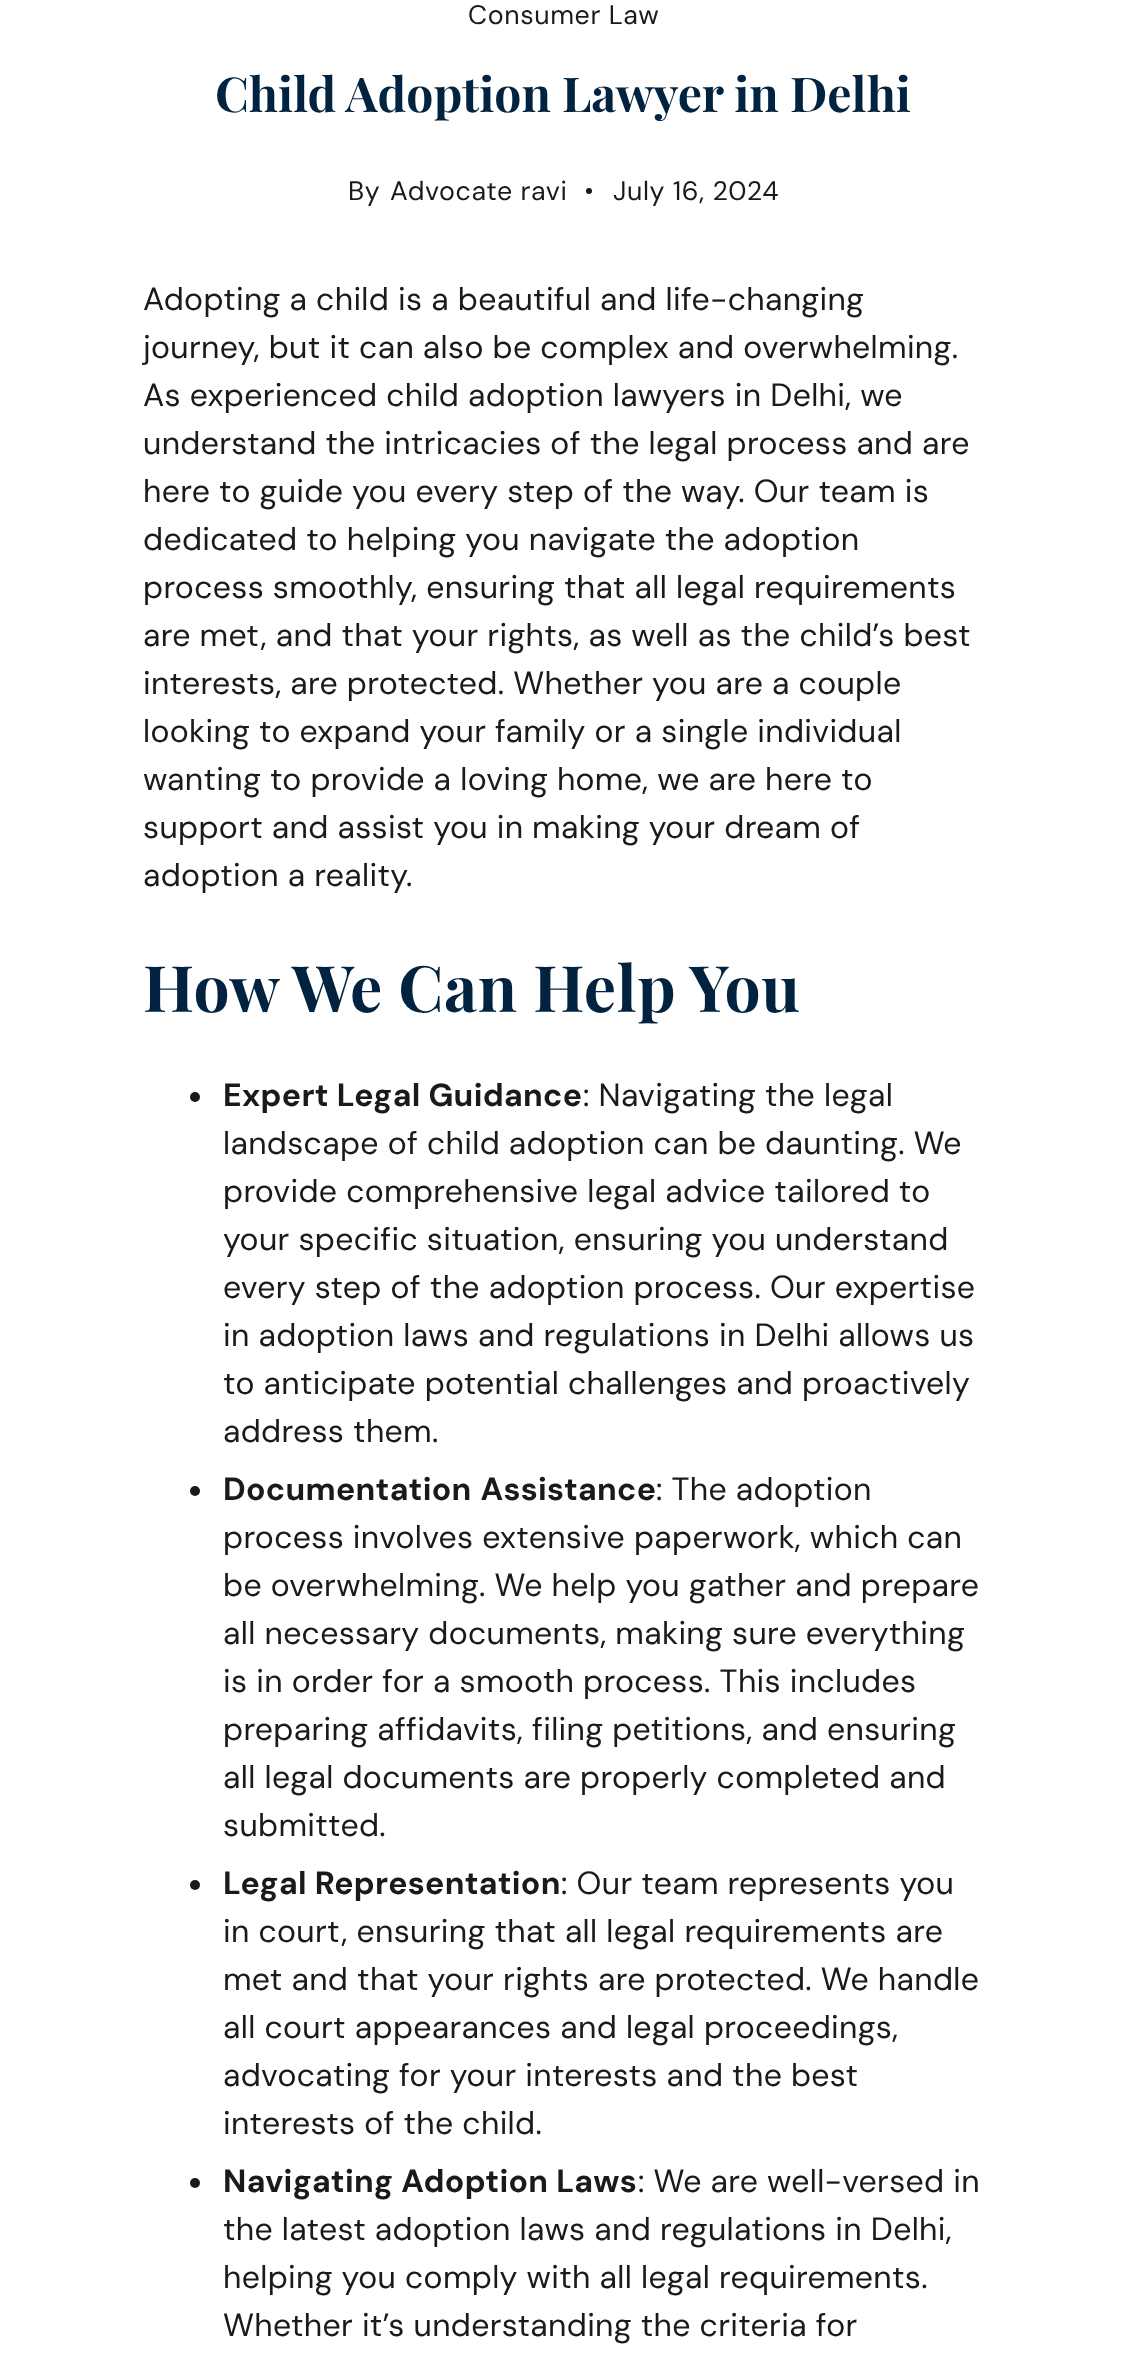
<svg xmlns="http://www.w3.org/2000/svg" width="1126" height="2376">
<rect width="100%" height="100%" fill="#fff"/>
<text x="468" y="24" style="font-family:DM Sans;font-size:26.75px;letter-spacing:0.6px;fill:#1a1a1a">Consumer Law</text>
<text x="215" y="112" style="font-family:Playfair Display;font-size:48px;font-weight:bold;fill:#01233f">Child Adoption Lawyer in Delhi</text>
<text x="348" y="200" style="font-family:DM Sans;font-size:26.75px;letter-spacing:0.6px;fill:#1a1a1a">By</text>
<text x="390" y="200" style="font-family:DM Sans;font-size:26.75px;letter-spacing:0.6px;fill:#1a1a1a">Advocate ravi</text>
<circle cx="589" cy="191" r="3" fill="#1a1a1a"/>
<text x="613" y="200" style="font-family:DM Sans;font-size:26.75px;letter-spacing:0.6px;fill:#1a1a1a">July 16, 2024</text>
<text x="143" y="310" style="font-family:'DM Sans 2';font-size:32px;letter-spacing:0.32px;fill:#1a1a1a">Adopting a child is a beautiful and life-changing</text>
<text x="143" y="358" style="font-family:'DM Sans 2';font-size:32px;letter-spacing:0.32px;fill:#1a1a1a">journey, but it can also be complex and overwhelming.</text>
<text x="143" y="406" style="font-family:'DM Sans 2';font-size:32px;letter-spacing:0.32px;fill:#1a1a1a">As experienced child adoption lawyers in Delhi, we</text>
<text x="143" y="454" style="font-family:'DM Sans 2';font-size:32px;letter-spacing:0.32px;fill:#1a1a1a">understand the intricacies of the legal process and are</text>
<text x="143" y="502" style="font-family:'DM Sans 2';font-size:32px;letter-spacing:0.32px;fill:#1a1a1a">here to guide you every step of the way. Our team is</text>
<text x="143" y="550" style="font-family:'DM Sans 2';font-size:32px;letter-spacing:0.32px;fill:#1a1a1a">dedicated to helping you navigate the adoption</text>
<text x="143" y="598" style="font-family:'DM Sans 2';font-size:32px;letter-spacing:0.32px;fill:#1a1a1a">process smoothly, ensuring that all legal requirements</text>
<text x="143" y="646" style="font-family:'DM Sans 2';font-size:32px;letter-spacing:0.32px;fill:#1a1a1a">are met, and that your rights, as well as the child’s best</text>
<text x="143" y="694" style="font-family:'DM Sans 2';font-size:32px;letter-spacing:0.32px;fill:#1a1a1a">interests, are protected. Whether you are a couple</text>
<text x="143" y="742" style="font-family:'DM Sans 2';font-size:32px;letter-spacing:0.32px;fill:#1a1a1a">looking to expand your family or a single individual</text>
<text x="143" y="790" style="font-family:'DM Sans 2';font-size:32px;letter-spacing:0.32px;fill:#1a1a1a">wanting to provide a loving home, we are here to</text>
<text x="143" y="838" style="font-family:'DM Sans 2';font-size:32px;letter-spacing:0.32px;fill:#1a1a1a">support and assist you in making your dream of</text>
<text x="143" y="886" style="font-family:'DM Sans 2';font-size:32px;letter-spacing:0.32px;fill:#1a1a1a">adoption a reality.</text>
<text x="143" y="1012" style="font-family:Playfair Display;font-size:64px;font-weight:bold;letter-spacing:0.6px;fill:#01233f">How We Can Help You</text>
<circle cx="195" cy="1097" r="5" fill="#1a1a1a"/>
<text x="223" y="1106" style="font-family:DM Sans;font-size:32px;font-weight:bold;letter-spacing:0.32px;fill:#1a1a1a">Expert Legal Guidance</text>
<text x="583" y="1106" style="font-family:'DM Sans 2';font-size:32px;letter-spacing:0.32px;fill:#1a1a1a">: Navigating the legal</text>
<text x="223" y="1154" style="font-family:'DM Sans 2';font-size:32px;letter-spacing:0.32px;fill:#1a1a1a">landscape of child adoption can be daunting. We</text>
<text x="223" y="1202" style="font-family:'DM Sans 2';font-size:32px;letter-spacing:0.32px;fill:#1a1a1a">provide comprehensive legal advice tailored to</text>
<text x="223" y="1250" style="font-family:'DM Sans 2';font-size:32px;letter-spacing:0.32px;fill:#1a1a1a">your specific situation, ensuring you understand</text>
<text x="223" y="1298" style="font-family:'DM Sans 2';font-size:32px;letter-spacing:0.32px;fill:#1a1a1a">every step of the adoption process. Our expertise</text>
<text x="223" y="1346" style="font-family:'DM Sans 2';font-size:32px;letter-spacing:0.32px;fill:#1a1a1a">in adoption laws and regulations in Delhi allows us</text>
<text x="223" y="1394" style="font-family:'DM Sans 2';font-size:32px;letter-spacing:0.32px;fill:#1a1a1a">to anticipate potential challenges and proactively</text>
<text x="223" y="1442" style="font-family:'DM Sans 2';font-size:32px;letter-spacing:0.32px;fill:#1a1a1a">address them.</text>
<circle cx="195" cy="1491" r="5" fill="#1a1a1a"/>
<text x="223" y="1500" word-spacing="1" style="font-family:DM Sans;font-size:32px;font-weight:bold;letter-spacing:0.32px;fill:#1a1a1a">Documentation Assistance</text>
<text x="656" y="1500" style="font-family:'DM Sans 2';font-size:32px;letter-spacing:0.32px;fill:#1a1a1a">: The adoption</text>
<text x="223" y="1548" style="font-family:'DM Sans 2';font-size:32px;letter-spacing:0.32px;fill:#1a1a1a">process involves extensive paperwork, which can</text>
<text x="223" y="1596" style="font-family:'DM Sans 2';font-size:32px;letter-spacing:0.32px;fill:#1a1a1a">be overwhelming. We help you gather and prepare</text>
<text x="223" y="1644" style="font-family:'DM Sans 2';font-size:32px;letter-spacing:0.32px;fill:#1a1a1a">all necessary documents, making sure everything</text>
<text x="223" y="1692" style="font-family:'DM Sans 2';font-size:32px;letter-spacing:0.32px;fill:#1a1a1a">is in order for a smooth process. This includes</text>
<text x="223" y="1740" style="font-family:'DM Sans 2';font-size:32px;letter-spacing:0.32px;fill:#1a1a1a">preparing affidavits, filing petitions, and ensuring</text>
<text x="223" y="1788" style="font-family:'DM Sans 2';font-size:32px;letter-spacing:0.32px;fill:#1a1a1a">all legal documents are properly completed and</text>
<text x="223" y="1836" style="font-family:'DM Sans 2';font-size:32px;letter-spacing:0.32px;fill:#1a1a1a">submitted.</text>
<circle cx="195" cy="1885" r="5" fill="#1a1a1a"/>
<text x="223" y="1894" style="font-family:DM Sans;font-size:32px;font-weight:bold;letter-spacing:0.32px;fill:#1a1a1a">Legal Representation</text>
<text x="561" y="1894" style="font-family:'DM Sans 2';font-size:32px;letter-spacing:0.32px;fill:#1a1a1a">: Our team represents you</text>
<text x="223" y="1942" style="font-family:'DM Sans 2';font-size:32px;letter-spacing:0.32px;fill:#1a1a1a">in court, ensuring that all legal requirements are</text>
<text x="223" y="1990" style="font-family:'DM Sans 2';font-size:32px;letter-spacing:0.32px;fill:#1a1a1a">met and that your rights are protected. We handle</text>
<text x="223" y="2038" style="font-family:'DM Sans 2';font-size:32px;letter-spacing:0.32px;fill:#1a1a1a">all court appearances and legal proceedings,</text>
<text x="223" y="2086" style="font-family:'DM Sans 2';font-size:32px;letter-spacing:0.32px;fill:#1a1a1a">advocating for your interests and the best</text>
<text x="223" y="2134" style="font-family:'DM Sans 2';font-size:32px;letter-spacing:0.32px;fill:#1a1a1a">interests of the child.</text>
<circle cx="195" cy="2183" r="5" fill="#1a1a1a"/>
<text x="223" y="2192" style="font-family:DM Sans;font-size:32px;font-weight:bold;letter-spacing:0.32px;fill:#1a1a1a">Navigating Adoption Laws</text>
<text x="638" y="2192" style="font-family:'DM Sans 2';font-size:32px;letter-spacing:0.32px;fill:#1a1a1a">: We are well-versed in</text>
<text x="223" y="2240" style="font-family:'DM Sans 2';font-size:32px;letter-spacing:0.32px;fill:#1a1a1a">the latest adoption laws and regulations in Delhi,</text>
<text x="223" y="2288" style="font-family:'DM Sans 2';font-size:32px;letter-spacing:0.32px;fill:#1a1a1a">helping you comply with all legal requirements.</text>
<text x="223" y="2336" style="font-family:'DM Sans 2';font-size:32px;letter-spacing:0.32px;fill:#1a1a1a">Whether it’s understanding the criteria for</text>
</svg>
